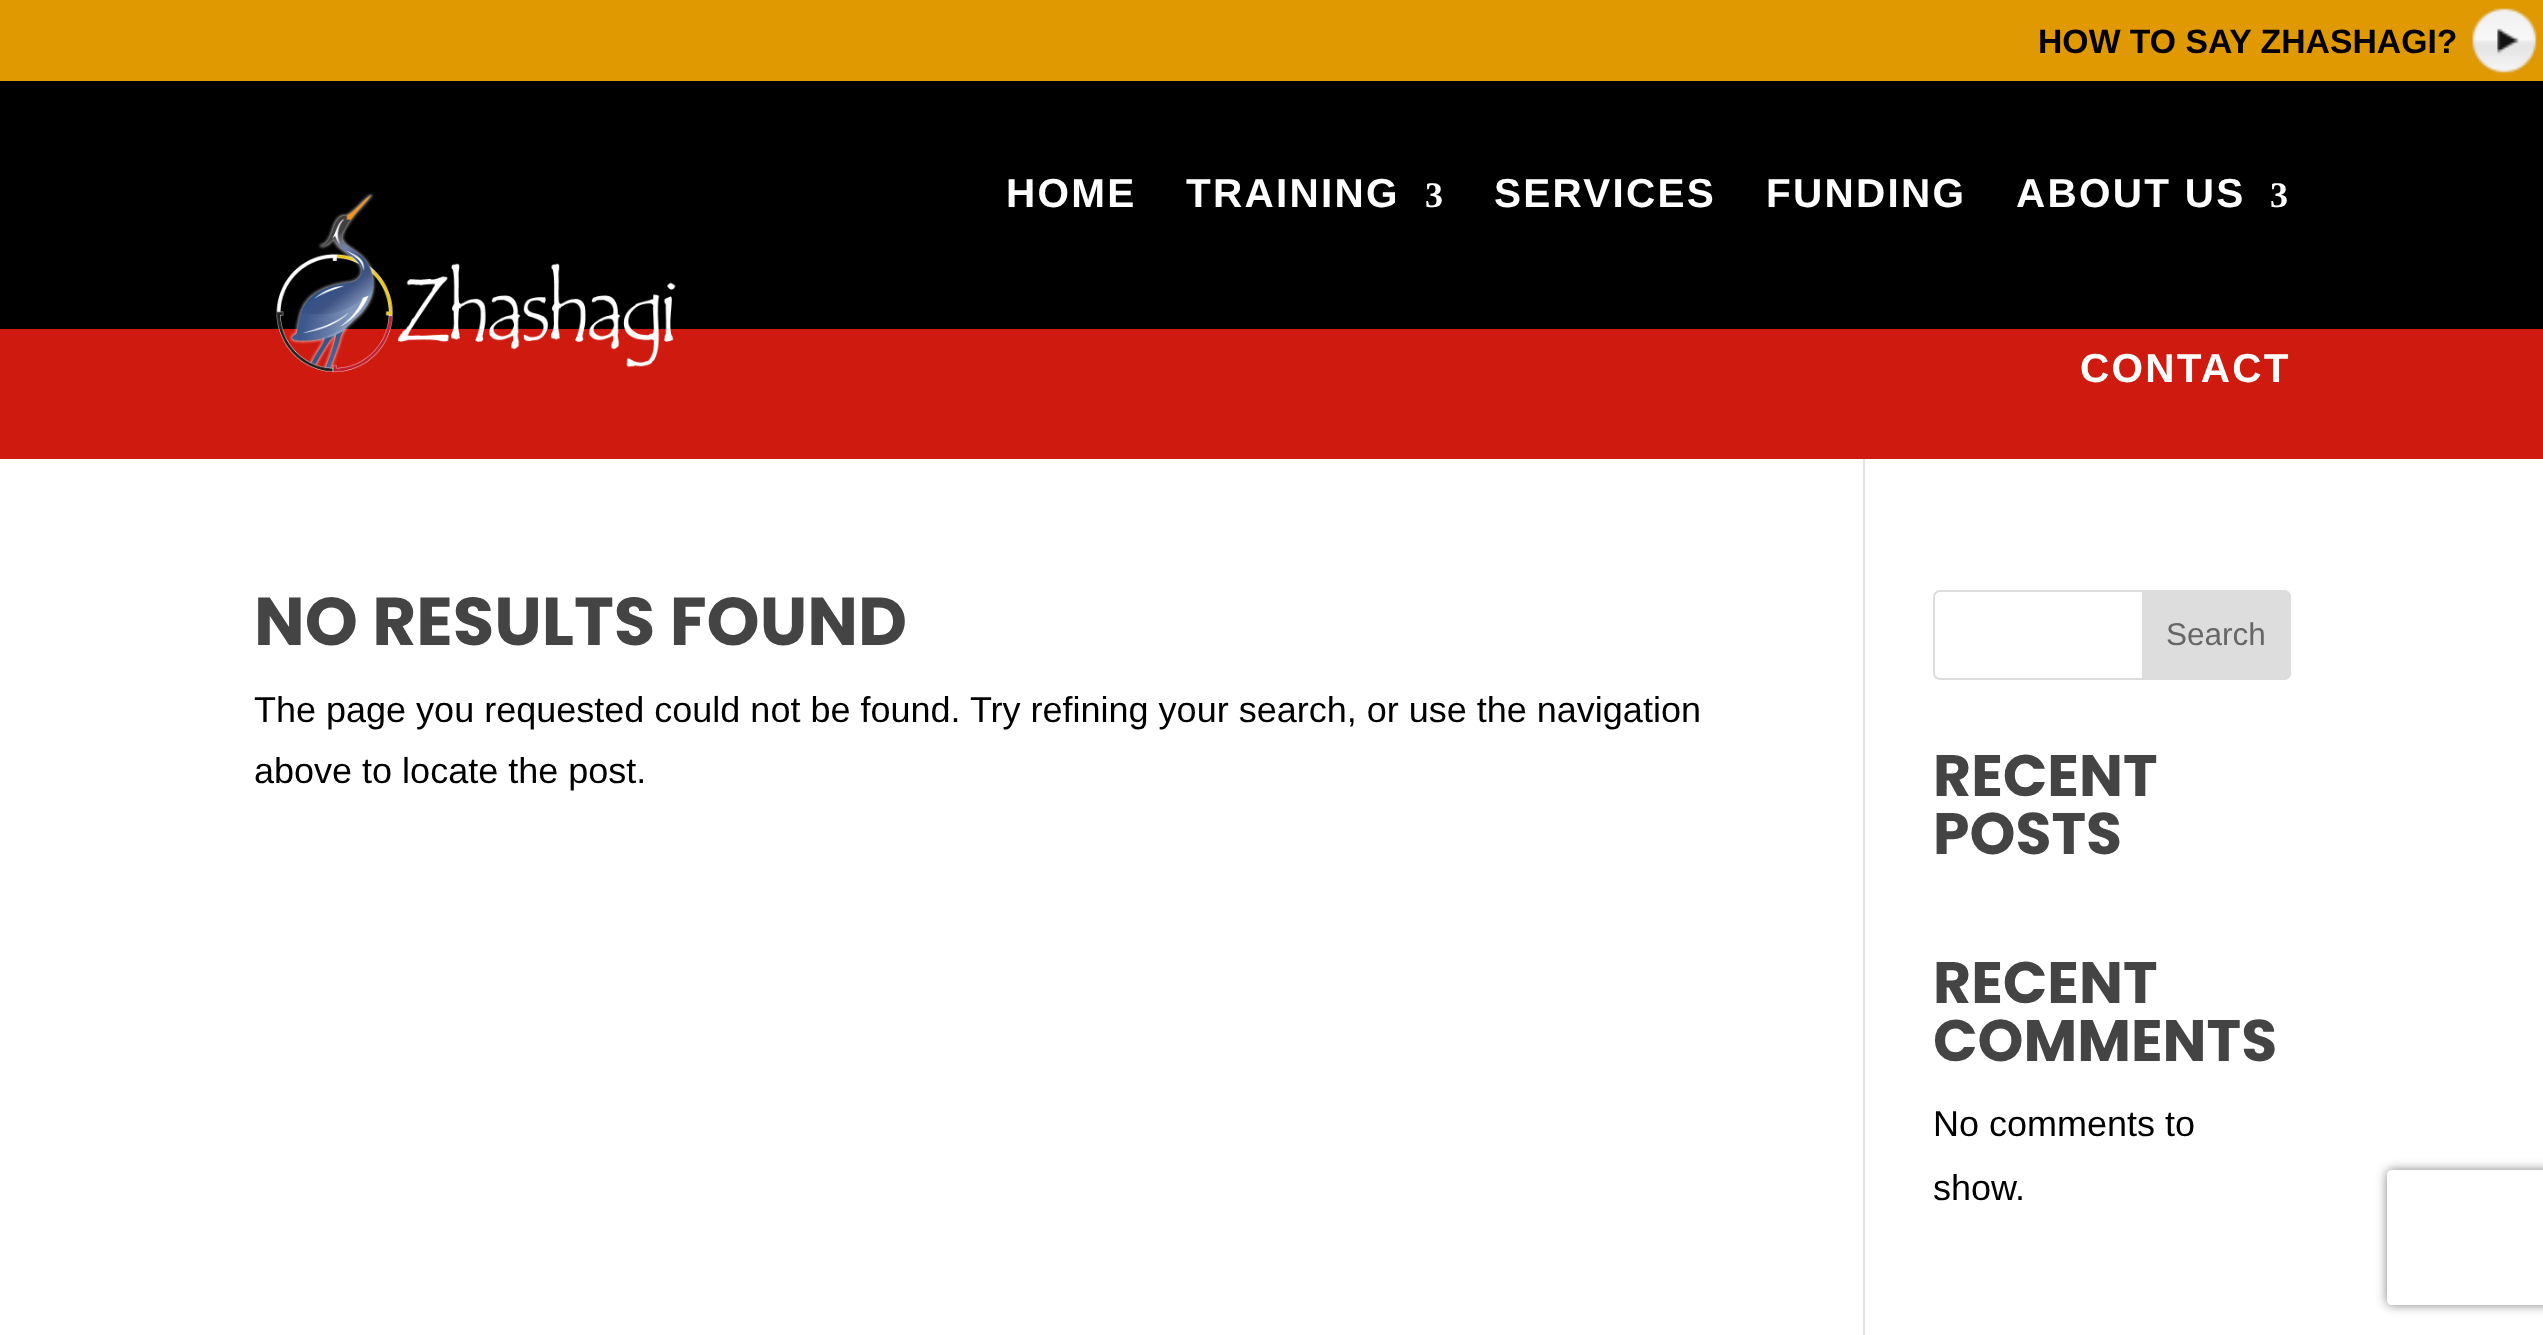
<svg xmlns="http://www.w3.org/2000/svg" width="2543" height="1335">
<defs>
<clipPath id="clip1"><path d="M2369 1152h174v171h-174zm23 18h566c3 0 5 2 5 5v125c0 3-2 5-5 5h-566c-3 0-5-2-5-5v-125c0-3 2-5 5-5z" clip-rule="evenodd"/></clipPath>
</defs>
<rect width="100%" height="100%" fill="#cf1a10"/>
<rect width="2543" height="81" fill="#e09900"/>
<text x="2038" y="53" style="font-family:Liberation Sans;font-size:33.75px;font-weight:bold;fill:#000">HOW TO SAY ZHASHAGI?</text>
<image x="2472" y="8" width="65" height="65" href="media/1.png"/>
<rect y="81" width="2543" height="248" fill="#000"/>
<image x="276" y="193" width="400" height="180" href="media/2.png"/>
<text x="1006" y="207" style="font-family:Liberation Sans;font-size:40.5px;font-weight:bold;letter-spacing:2.25px;fill:#fff">HOME</text>
<text x="1186" y="207" style="font-family:Liberation Sans;font-size:40.5px;font-weight:bold;letter-spacing:2.25px;fill:#fff">TRAINING</text>
<text x="1425" y="207" style="font-family:Liberation Serif;font-size:36px;font-weight:bold;letter-spacing:2.25px;fill:#fff">3</text>
<text x="1494" y="207" style="font-family:Liberation Sans;font-size:40.5px;font-weight:bold;letter-spacing:2.25px;fill:#fff">SERVICES</text>
<text x="1766" y="207" style="font-family:Liberation Sans;font-size:40.5px;font-weight:bold;letter-spacing:2.25px;fill:#fff">FUNDING</text>
<text x="2016" y="207" style="font-family:Liberation Sans;font-size:40.5px;font-weight:bold;letter-spacing:2.25px;fill:#fff">ABOUT US</text>
<text x="2270" y="207" style="font-family:Liberation Serif;font-size:36px;font-weight:bold;letter-spacing:2.25px;fill:#fff">3</text>
<text x="2080" y="382" style="font-family:Liberation Sans;font-size:40.5px;font-weight:bold;letter-spacing:2.25px;fill:#fff">CONTACT</text>
<rect y="459" width="2543" height="876" fill="#fff"/>
<rect x="1863" y="459" width="2" height="876" fill="#e2e2e2"/>
<text x="254" y="645" style="font-family:Poppins;font-size:67.5px;font-weight:bold;fill:#444">NO RESULTS FOUND</text>
<text x="254" y="722" style="font-family:Liberation Sans;font-size:36px;fill:#000">The page you requested could not be found. Try refining your search, or use the navigation</text>
<text x="254" y="783" style="font-family:Liberation Sans;font-size:36px;fill:#000">above to locate the post.</text>
<rect x="1934" y="591" width="356" height="88" rx="6" fill="none" stroke="#ddd" stroke-width="2"/>
<path d="M2143 591h141c3.5 0 6 2.5 6 6v76c0 3.5-2.5 6-6 6h-141z" fill="#ddd" stroke="#ddd" stroke-width="2"/>
<text x="2166" y="645" style="font-family:Liberation Sans;font-size:31.5px;fill:#666">Search</text>
<text x="1933" y="796" style="font-family:Poppins;font-size:58.5px;font-weight:bold;fill:#444">RECENT</text>
<text x="1933" y="854" style="font-family:Poppins;font-size:58.5px;font-weight:bold;fill:#444">POSTS</text>
<text x="1933" y="1003" style="font-family:Poppins;font-size:58.5px;font-weight:bold;fill:#444">RECENT</text>
<text x="1933" y="1061" style="font-family:Poppins;font-size:58.5px;font-weight:bold;fill:#444">COMMENTS</text>
<text x="1933" y="1136" style="font-family:Liberation Sans;font-size:36px;fill:#000">No comments to</text>
<text x="1933" y="1200" style="font-family:Liberation Sans;font-size:36px;fill:#000">show.</text>
<g clip-path="url(#clip1)">
<rect x="2387" y="1170" width="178" height="135" rx="5" fill="#808080" filter="blur(5.5px)"/>
</g>
</svg>
